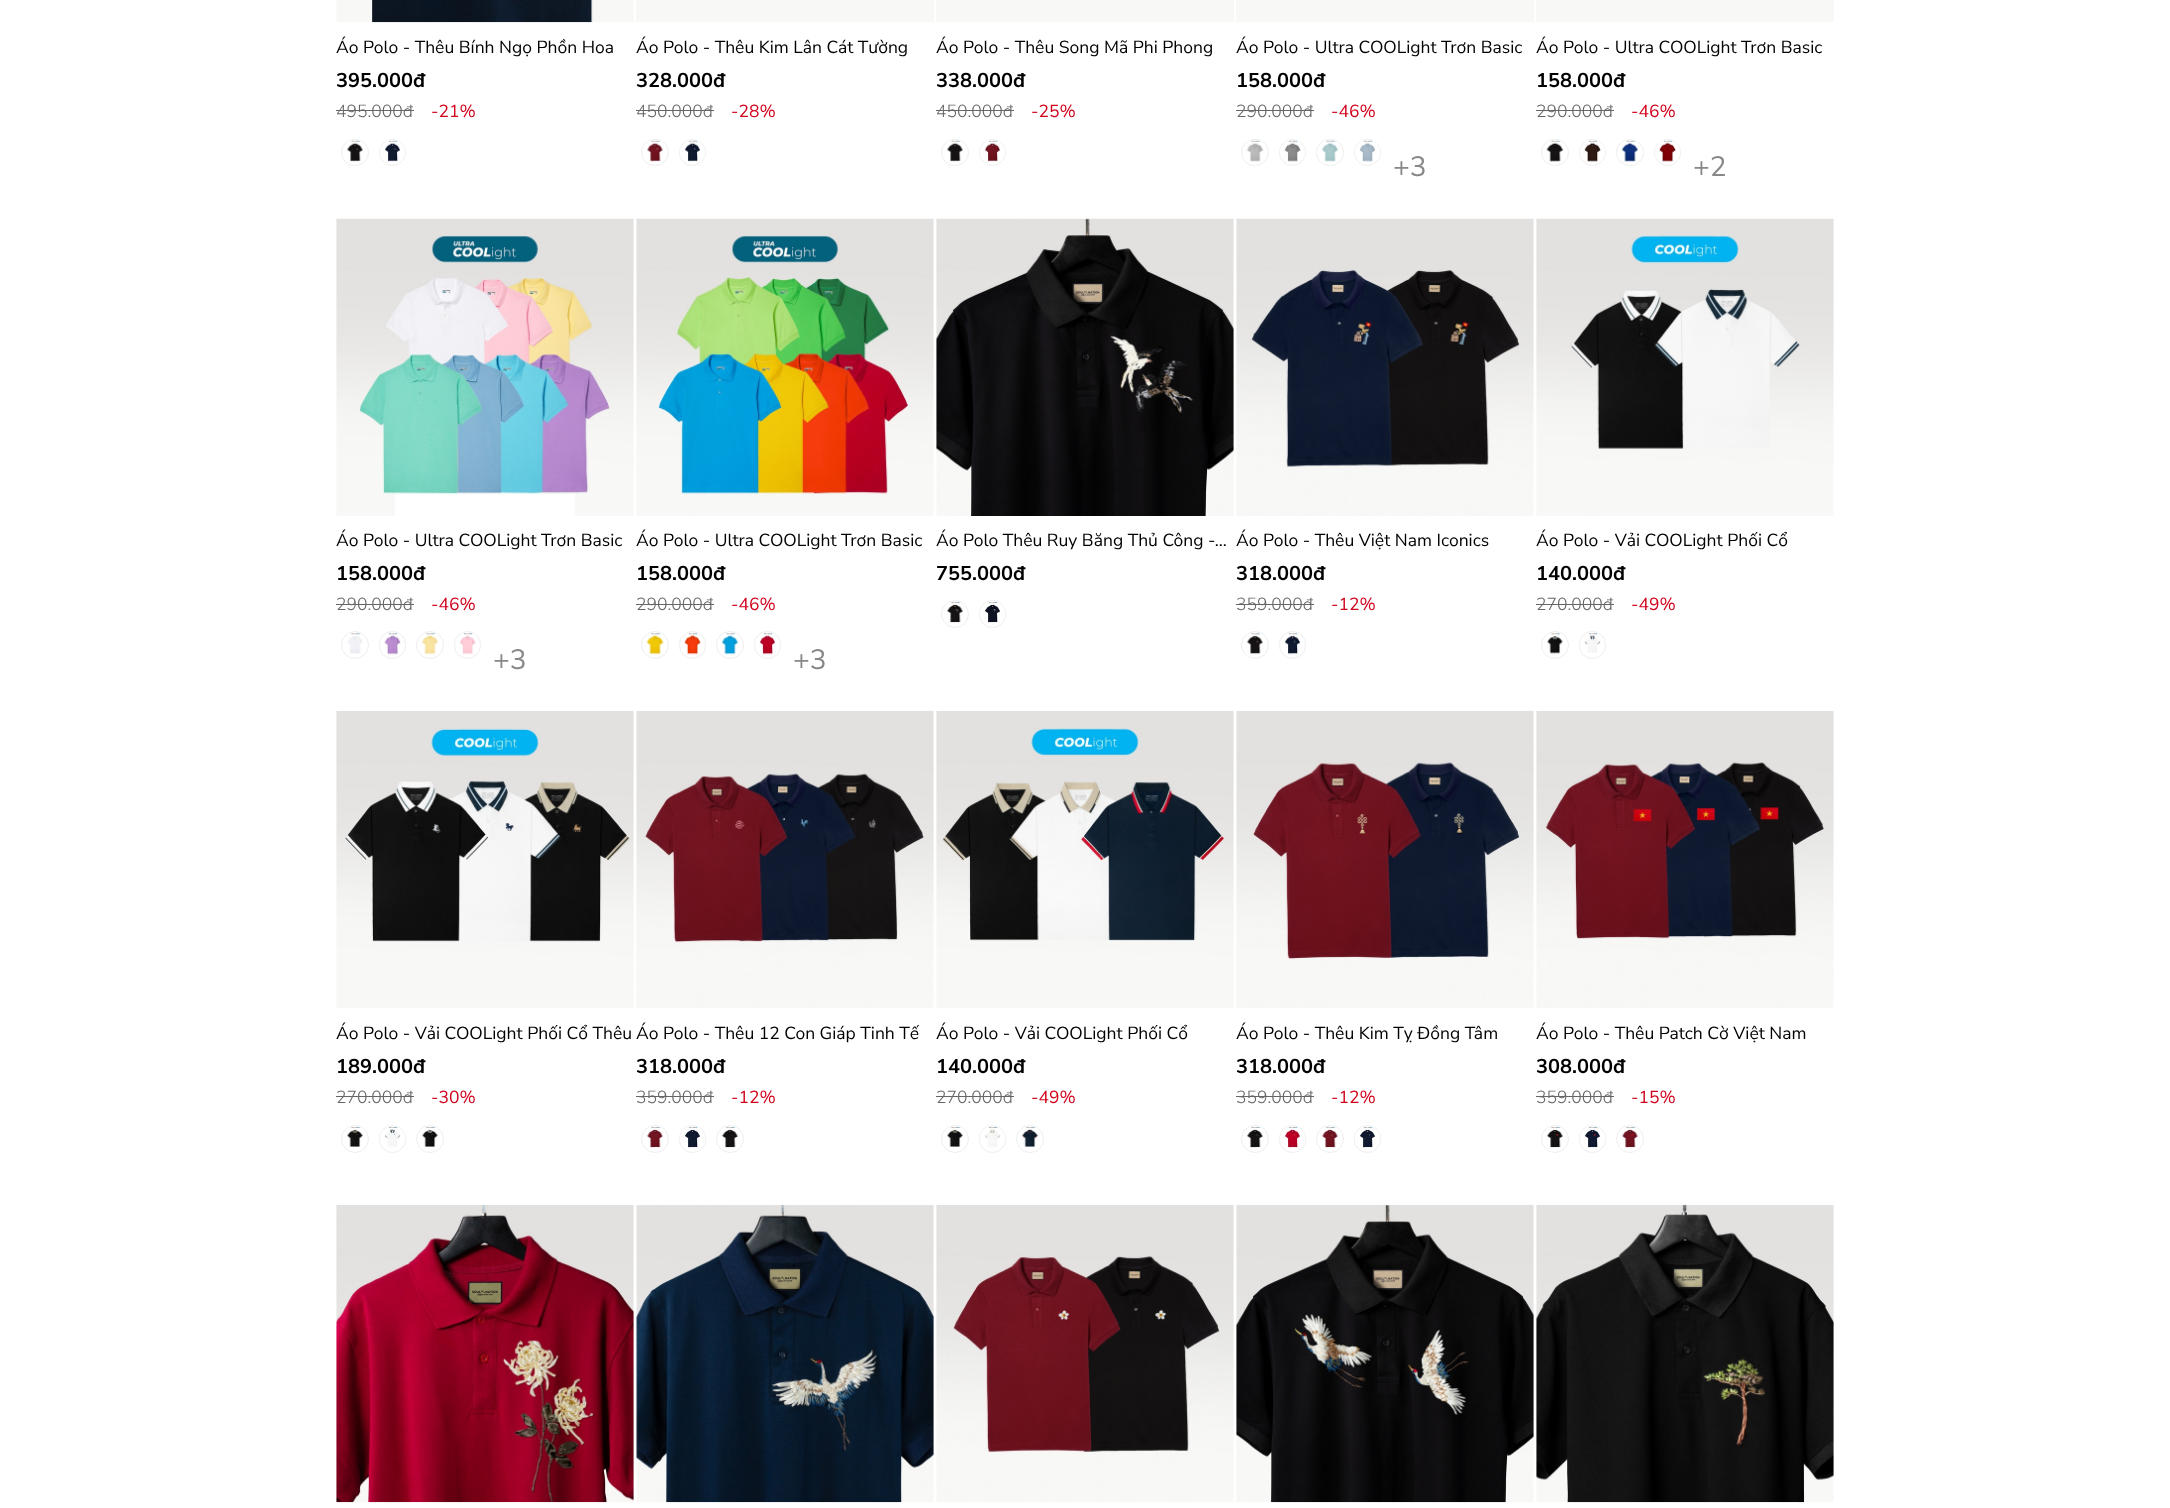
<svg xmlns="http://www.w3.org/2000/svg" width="2170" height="1508">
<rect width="100%" height="100%" fill="#fff"/>
<image x="336" y="0" width="298" height="23" href="media/1.png"/>
<text x="336" y="53" style="font-family:Nunito Sans;font-size:17.5px;fill:#000">Áo Polo - Thêu Bính Ngọ Phồn Hoa</text>
<text x="336" y="87" style="font-family:Nunito Sans;font-size:20px;font-weight:bold;fill:#000">395.000đ</text>
<text x="336" y="117" style="font-family:Nunito Sans;font-size:17.5px;font-weight:300;fill:#666">495.000đ</text>
<rect x="336" y="110" width="78" height="1" fill="#666"/>
<text x="431" y="117" style="font-family:Nunito Sans;font-size:17.5px;fill:#d0021b">-21%</text>
<rect x="341.5" y="139.5" width="27" height="26" rx="13" fill="none" stroke="#eee"/>
<image x="347" y="140" width="16" height="22" href="media/2.png"/>
<circle cx="392.5" cy="152.5" r="13" fill="none" stroke="#eee"/>
<image x="380" y="140" width="25" height="22" href="media/3.png"/>
<rect x="636" width="298" height="22" fill="#f8f8f6"/>
<text x="636" y="53" style="font-family:Nunito Sans;font-size:17.5px;fill:#000">Áo Polo - Thêu Kim Lân Cát Tường</text>
<text x="636" y="87" style="font-family:Nunito Sans;font-size:20px;font-weight:bold;fill:#000">328.000đ</text>
<text x="636" y="117" style="font-family:Nunito Sans;font-size:17.5px;font-weight:300;fill:#666">450.000đ</text>
<rect x="636" y="110" width="78" height="1" fill="#666"/>
<text x="731" y="117" style="font-family:Nunito Sans;font-size:17.5px;fill:#d0021b">-28%</text>
<rect x="641.5" y="139.5" width="27" height="26" rx="13" fill="none" stroke="#eee"/>
<image x="647" y="140" width="16" height="22" href="media/4.png"/>
<circle cx="692.5" cy="152.5" r="13" fill="none" stroke="#eee"/>
<image x="680" y="140" width="25" height="22" href="media/5.png"/>
<rect x="936" width="298" height="22" fill="#f8f8f6"/>
<text x="936" y="53" style="font-family:Nunito Sans;font-size:17.5px;fill:#000">Áo Polo - Thêu Song Mã Phi Phong</text>
<text x="936" y="87" style="font-family:Nunito Sans;font-size:20px;font-weight:bold;fill:#000">338.000đ</text>
<text x="936" y="117" style="font-family:Nunito Sans;font-size:17.5px;font-weight:300;fill:#666">450.000đ</text>
<rect x="936" y="110" width="78" height="1" fill="#666"/>
<text x="1031" y="117" style="font-family:Nunito Sans;font-size:17.5px;fill:#d0021b">-25%</text>
<rect x="941.5" y="139.5" width="27" height="26" rx="13" fill="none" stroke="#eee"/>
<image x="947" y="140" width="16" height="22" href="media/6.png"/>
<circle cx="992.5" cy="152.5" r="13" fill="none" stroke="#eee"/>
<image x="980" y="140" width="25" height="22" href="media/7.png"/>
<rect x="1236" width="298" height="22" fill="#f8f8f6"/>
<text x="1236" y="53" style="font-family:Nunito Sans;font-size:17.5px;fill:#000">Áo Polo - Ultra COOLight Trơn Basic</text>
<text x="1236" y="87" style="font-family:Nunito Sans;font-size:20px;font-weight:bold;fill:#000">158.000đ</text>
<text x="1236" y="117" style="font-family:Nunito Sans;font-size:17.5px;font-weight:300;fill:#666">290.000đ</text>
<rect x="1236" y="110" width="78" height="1" fill="#666"/>
<text x="1331" y="117" style="font-family:Nunito Sans;font-size:17.5px;fill:#d0021b">-46%</text>
<rect x="1241.5" y="139.5" width="27" height="26" rx="13" fill="none" stroke="#eee"/>
<image x="1246" y="140" width="18" height="22" href="media/8.png"/>
<circle cx="1292.5" cy="152.5" r="13" fill="none" stroke="#eee"/>
<image x="1280" y="140" width="25" height="22" href="media/9.png"/>
<rect x="1316.5" y="139.5" width="27" height="26" rx="13" fill="none" stroke="#eee"/>
<image x="1322" y="140" width="17" height="22" href="media/10.png"/>
<circle cx="1367.5" cy="152.5" r="13" fill="none" stroke="#eee"/>
<image x="1355" y="140" width="25" height="22" href="media/11.png"/>
<text x="1393" y="176" style="font-family:Nunito Sans;font-size:28px;fill:#888">+3</text>
<rect x="1536" width="298" height="22" fill="#f8f8f6"/>
<text x="1536" y="53" style="font-family:Nunito Sans;font-size:17.5px;fill:#000">Áo Polo - Ultra COOLight Trơn Basic</text>
<text x="1536" y="87" style="font-family:Nunito Sans;font-size:20px;font-weight:bold;fill:#000">158.000đ</text>
<text x="1536" y="117" style="font-family:Nunito Sans;font-size:17.5px;font-weight:300;fill:#666">290.000đ</text>
<rect x="1536" y="110" width="78" height="1" fill="#666"/>
<text x="1631" y="117" style="font-family:Nunito Sans;font-size:17.5px;fill:#d0021b">-46%</text>
<rect x="1541.5" y="139.5" width="27" height="26" rx="13" fill="none" stroke="#eee"/>
<image x="1546" y="140" width="18" height="22" href="media/12.png"/>
<circle cx="1592.5" cy="152.5" r="13" fill="none" stroke="#eee"/>
<image x="1580" y="140" width="25" height="22" href="media/13.png"/>
<rect x="1616.5" y="139.5" width="27" height="26" rx="13" fill="none" stroke="#eee"/>
<image x="1621" y="140" width="18" height="22" href="media/14.png"/>
<circle cx="1667.5" cy="152.5" r="13" fill="none" stroke="#eee"/>
<image x="1655" y="140" width="25" height="22" href="media/15.png"/>
<text x="1693" y="176" style="font-family:Nunito Sans;font-size:28px;fill:#888">+2</text>
<image x="336" y="218" width="298" height="298" href="media/16.png"/>
<text x="336" y="546" style="font-family:Nunito Sans;font-size:17.5px;fill:#000">Áo Polo - Ultra COOLight Trơn Basic</text>
<text x="336" y="580" style="font-family:Nunito Sans;font-size:20px;font-weight:bold;fill:#000">158.000đ</text>
<text x="336" y="610" style="font-family:Nunito Sans;font-size:17.5px;font-weight:300;fill:#666">290.000đ</text>
<rect x="336" y="604" width="78" height="1" fill="#666"/>
<text x="431" y="610" style="font-family:Nunito Sans;font-size:17.5px;fill:#d0021b">-46%</text>
<circle cx="355" cy="645" r="13.5" fill="none" stroke="#eee"/>
<image x="347" y="633" width="16" height="21" href="media/17.png"/>
<rect x="379.5" y="631.5" width="26" height="27" rx="13" fill="none" stroke="#eee"/>
<image x="384" y="633" width="17" height="22" href="media/18.png"/>
<circle cx="430" cy="645" r="13.5" fill="none" stroke="#eee"/>
<image x="421" y="633" width="18" height="22" href="media/19.png"/>
<rect x="454.5" y="631.5" width="26" height="27" rx="13" fill="none" stroke="#eee"/>
<image x="459" y="633" width="17" height="22" href="media/20.png"/>
<text x="493" y="669" style="font-family:Nunito Sans;font-size:28px;fill:#888">+3</text>
<image x="636" y="218" width="298" height="298" href="media/21.png"/>
<text x="636" y="546" style="font-family:Nunito Sans;font-size:17.5px;fill:#000">Áo Polo - Ultra COOLight Trơn Basic</text>
<text x="636" y="580" style="font-family:Nunito Sans;font-size:20px;font-weight:bold;fill:#000">158.000đ</text>
<text x="636" y="610" style="font-family:Nunito Sans;font-size:17.5px;font-weight:300;fill:#666">290.000đ</text>
<rect x="636" y="604" width="78" height="1" fill="#666"/>
<text x="731" y="610" style="font-family:Nunito Sans;font-size:17.5px;fill:#d0021b">-46%</text>
<circle cx="655" cy="645" r="13.5" fill="none" stroke="#eee"/>
<image x="646" y="633" width="18" height="22" href="media/22.png"/>
<rect x="679.5" y="631.5" width="26" height="27" rx="13" fill="none" stroke="#eee"/>
<image x="684" y="633" width="17" height="22" href="media/23.png"/>
<circle cx="730" cy="645" r="13.5" fill="none" stroke="#eee"/>
<image x="721" y="633" width="18" height="22" href="media/24.png"/>
<rect x="754.5" y="631.5" width="26" height="27" rx="13" fill="none" stroke="#eee"/>
<image x="759" y="633" width="17" height="22" href="media/25.png"/>
<text x="793" y="669" style="font-family:Nunito Sans;font-size:28px;fill:#888">+3</text>
<image x="936" y="218" width="298" height="298" href="media/26.png"/>
<text x="936" y="546" style="font-family:Nunito Sans;font-size:17.5px;fill:#000">Áo Polo Thêu Ruy Băng Thủ Công -…</text>
<text x="936" y="580" style="font-family:Nunito Sans;font-size:20px;font-weight:bold;fill:#000">755.000đ</text>
<circle cx="955" cy="614" r="13.5" fill="none" stroke="#eee"/>
<image x="947" y="602" width="16" height="21" href="media/27.png"/>
<rect x="979.5" y="600.5" width="26" height="27" rx="13" fill="none" stroke="#eee"/>
<image x="980" y="602" width="25" height="21" href="media/28.png"/>
<image x="1236" y="218" width="298" height="298" href="media/29.png"/>
<text x="1236" y="546" style="font-family:Nunito Sans;font-size:17.5px;fill:#000">Áo Polo - Thêu Việt Nam Iconics</text>
<text x="1236" y="580" style="font-family:Nunito Sans;font-size:20px;font-weight:bold;fill:#000">318.000đ</text>
<text x="1236" y="610" style="font-family:Nunito Sans;font-size:17.5px;font-weight:300;fill:#666">359.000đ</text>
<rect x="1236" y="604" width="78" height="1" fill="#666"/>
<text x="1331" y="610" style="font-family:Nunito Sans;font-size:17.5px;fill:#d0021b">-12%</text>
<circle cx="1255" cy="645" r="13.5" fill="none" stroke="#eee"/>
<image x="1247" y="633" width="16" height="22" href="media/30.png"/>
<rect x="1279.5" y="631.5" width="26" height="27" rx="13" fill="none" stroke="#eee"/>
<image x="1285" y="633" width="15" height="22" href="media/31.png"/>
<image x="1536" y="218" width="298" height="298" href="media/32.png"/>
<text x="1536" y="546" style="font-family:Nunito Sans;font-size:17.5px;fill:#000">Áo Polo - Vải COOLight Phối Cổ</text>
<text x="1536" y="580" style="font-family:Nunito Sans;font-size:20px;font-weight:bold;fill:#000">140.000đ</text>
<text x="1536" y="610" style="font-family:Nunito Sans;font-size:17.5px;font-weight:300;fill:#666">270.000đ</text>
<rect x="1536" y="604" width="78" height="1" fill="#666"/>
<text x="1631" y="610" style="font-family:Nunito Sans;font-size:17.5px;fill:#d0021b">-49%</text>
<circle cx="1555" cy="645" r="13.5" fill="none" stroke="#eee"/>
<image x="1547" y="633" width="16" height="21" href="media/33.png"/>
<rect x="1579.5" y="631.5" width="26" height="27" rx="13" fill="none" stroke="#eee"/>
<image x="1584" y="633" width="17" height="20" href="media/34.png"/>
<image x="336" y="711" width="298" height="297" href="media/35.png"/>
<text x="336" y="1039" style="font-family:Nunito Sans;font-size:17.5px;fill:#000">Áo Polo - Vải COOLight Phối Cổ Thêu</text>
<text x="336" y="1073" style="font-family:Nunito Sans;font-size:20px;font-weight:bold;fill:#000">189.000đ</text>
<text x="336" y="1103" style="font-family:Nunito Sans;font-size:17.5px;font-weight:300;fill:#666">270.000đ</text>
<rect x="336" y="1096" width="78" height="1" fill="#666"/>
<text x="431" y="1103" style="font-family:Nunito Sans;font-size:17.5px;fill:#d0021b">-30%</text>
<circle cx="355" cy="1139" r="13.5" fill="none" stroke="#eee"/>
<image x="347" y="1127" width="17" height="20" href="media/36.png"/>
<rect x="379.5" y="1125.5" width="26" height="27" rx="13" fill="none" stroke="#eee"/>
<image x="380" y="1127" width="25" height="20" href="media/37.png"/>
<circle cx="430" cy="1139" r="13.5" fill="none" stroke="#eee"/>
<image x="422" y="1127" width="16" height="20" href="media/38.png"/>
<image x="636" y="711" width="298" height="297" href="media/39.png"/>
<text x="636" y="1039" style="font-family:Nunito Sans;font-size:17.5px;fill:#000">Áo Polo - Thêu 12 Con Giáp Tinh Tế</text>
<text x="636" y="1073" style="font-family:Nunito Sans;font-size:20px;font-weight:bold;fill:#000">318.000đ</text>
<text x="636" y="1103" style="font-family:Nunito Sans;font-size:17.5px;font-weight:300;fill:#666">359.000đ</text>
<rect x="636" y="1096" width="78" height="1" fill="#666"/>
<text x="731" y="1103" style="font-family:Nunito Sans;font-size:17.5px;fill:#d0021b">-12%</text>
<circle cx="655" cy="1139" r="13.5" fill="none" stroke="#eee"/>
<image x="647" y="1127" width="16" height="21" href="media/40.png"/>
<rect x="679.5" y="1125.5" width="26" height="27" rx="13" fill="none" stroke="#eee"/>
<image x="680" y="1127" width="25" height="21" href="media/41.png"/>
<circle cx="730" cy="1139" r="13.5" fill="none" stroke="#eee"/>
<image x="722" y="1127" width="16" height="21" href="media/42.png"/>
<image x="936" y="711" width="298" height="297" href="media/43.png"/>
<text x="936" y="1039" style="font-family:Nunito Sans;font-size:17.5px;fill:#000">Áo Polo - Vải COOLight Phối Cổ</text>
<text x="936" y="1073" style="font-family:Nunito Sans;font-size:20px;font-weight:bold;fill:#000">140.000đ</text>
<text x="936" y="1103" style="font-family:Nunito Sans;font-size:17.5px;font-weight:300;fill:#666">270.000đ</text>
<rect x="936" y="1096" width="78" height="1" fill="#666"/>
<text x="1031" y="1103" style="font-family:Nunito Sans;font-size:17.5px;fill:#d0021b">-49%</text>
<circle cx="955" cy="1139" r="13.5" fill="none" stroke="#eee"/>
<image x="947" y="1127" width="17" height="20" href="media/44.png"/>
<rect x="979.5" y="1125.5" width="26" height="27" rx="13" fill="none" stroke="#eee"/>
<image x="980" y="1127" width="25" height="20" href="media/45.png"/>
<circle cx="1030" cy="1139" r="13.5" fill="none" stroke="#eee"/>
<image x="1021" y="1127" width="18" height="20" href="media/46.png"/>
<image x="1236" y="711" width="298" height="297" href="media/47.png"/>
<text x="1236" y="1039" style="font-family:Nunito Sans;font-size:17.5px;fill:#000">Áo Polo - Thêu Kim Tỵ Đồng Tâm</text>
<text x="1236" y="1073" style="font-family:Nunito Sans;font-size:20px;font-weight:bold;fill:#000">318.000đ</text>
<text x="1236" y="1103" style="font-family:Nunito Sans;font-size:17.5px;font-weight:300;fill:#666">359.000đ</text>
<rect x="1236" y="1096" width="78" height="1" fill="#666"/>
<text x="1331" y="1103" style="font-family:Nunito Sans;font-size:17.5px;fill:#d0021b">-12%</text>
<circle cx="1255" cy="1139" r="13.5" fill="none" stroke="#eee"/>
<image x="1247" y="1127" width="16" height="21" href="media/48.png"/>
<rect x="1279.5" y="1125.5" width="26" height="27" rx="13" fill="none" stroke="#eee"/>
<image x="1280" y="1127" width="25" height="21" href="media/49.png"/>
<circle cx="1330" cy="1139" r="13.5" fill="none" stroke="#eee"/>
<image x="1322" y="1127" width="16" height="21" href="media/50.png"/>
<rect x="1354.5" y="1125.5" width="26" height="27" rx="13" fill="none" stroke="#eee"/>
<image x="1355" y="1127" width="25" height="21" href="media/51.png"/>
<image x="1536" y="711" width="298" height="297" href="media/52.png"/>
<text x="1536" y="1039" style="font-family:Nunito Sans;font-size:17.5px;fill:#000">Áo Polo - Thêu Patch Cờ Việt Nam</text>
<text x="1536" y="1073" style="font-family:Nunito Sans;font-size:20px;font-weight:bold;fill:#000">308.000đ</text>
<text x="1536" y="1103" style="font-family:Nunito Sans;font-size:17.5px;font-weight:300;fill:#666">359.000đ</text>
<rect x="1536" y="1096" width="78" height="1" fill="#666"/>
<text x="1631" y="1103" style="font-family:Nunito Sans;font-size:17.5px;fill:#d0021b">-15%</text>
<circle cx="1555" cy="1139" r="13.5" fill="none" stroke="#eee"/>
<image x="1547" y="1127" width="16" height="21" href="media/53.png"/>
<rect x="1579.5" y="1125.5" width="26" height="27" rx="13" fill="none" stroke="#eee"/>
<image x="1580" y="1127" width="25" height="21" href="media/54.png"/>
<circle cx="1630" cy="1139" r="13.5" fill="none" stroke="#eee"/>
<image x="1622" y="1127" width="16" height="21" href="media/55.png"/>
<image x="336" y="1205" width="298" height="298" href="media/56.png"/>
<image x="636" y="1204" width="298" height="299" href="media/57.png"/>
<image x="936" y="1205" width="298" height="297" href="media/58.png"/>
<image x="1236" y="1204" width="298" height="299" href="media/59.png"/>
<image x="1536" y="1204" width="298" height="299" href="media/60.png"/>
</svg>
